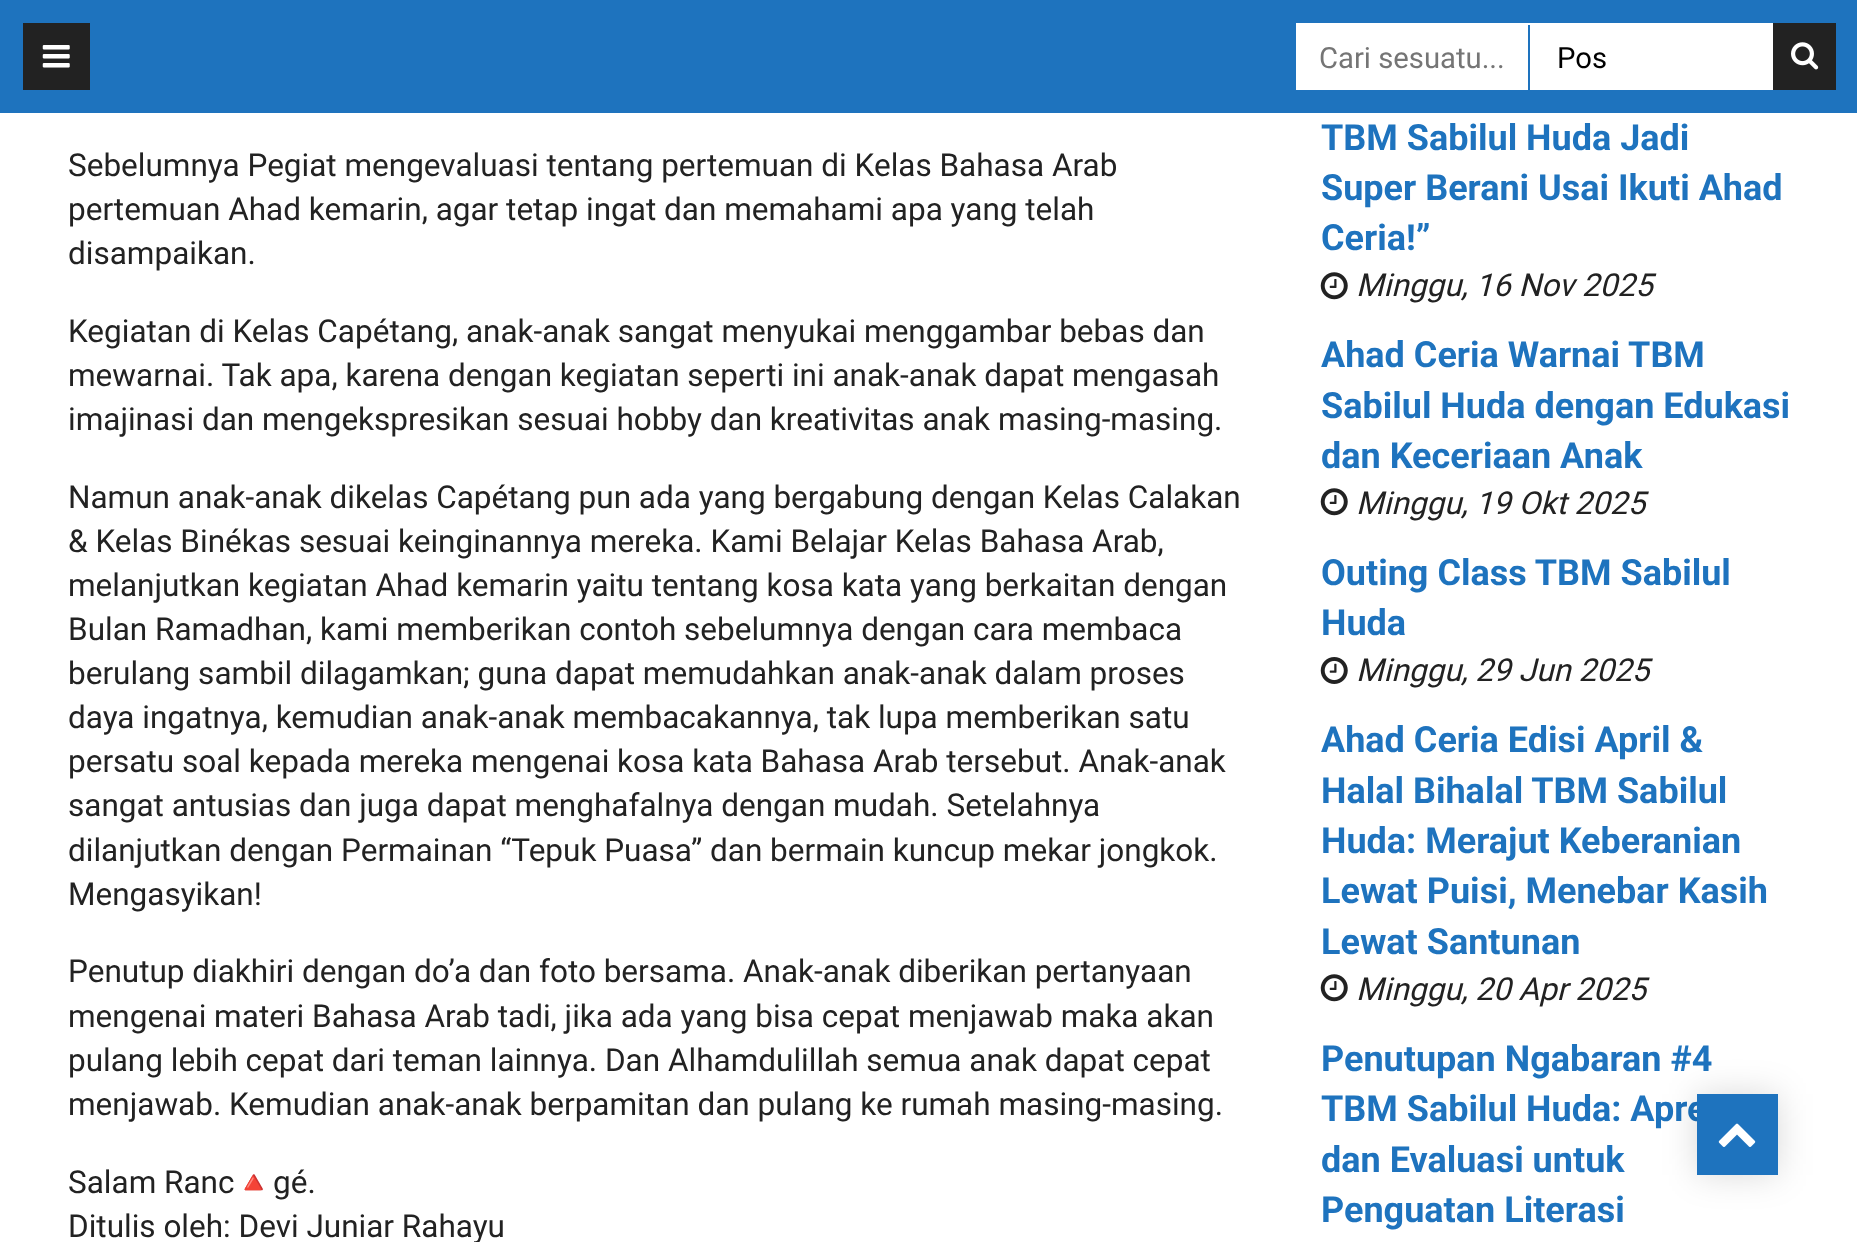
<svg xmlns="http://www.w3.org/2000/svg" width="1857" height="1242">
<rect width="100%" height="100%" fill="#fff"/>
<rect width="1857" height="113" fill="#1e73be"/>
<rect x="23" y="23" width="67" height="67" fill="#222"/>
<image x="42" y="45" width="28" height="23" href="media/1.png"/>
<rect x="1296" y="23" width="477" height="67" fill="#fff"/>
<rect x="1528" y="25" width="2" height="67" fill="#1e73be"/>
<text x="1319" y="68" style="font-family:Roboto;font-size:29.25px;fill:#757575">Cari sesuatu...</text>
<text x="1557" y="68" style="font-family:Roboto;font-size:29.25px;fill:#000">Pos</text>
<rect x="1773" y="23" width="63" height="67" fill="#222"/>
<image x="1791" y="42" width="28" height="28" href="media/2.png"/>
<text x="68" y="176" style="font-family:Roboto;font-size:31.5px;fill:#222">Sebelumnya Pegiat mengevaluasi tentang pertemuan di Kelas Bahasa Arab</text>
<text x="68" y="220" style="font-family:Roboto;font-size:31.5px;fill:#222">pertemuan Ahad kemarin, agar tetap ingat dan memahami apa yang telah</text>
<text x="68" y="264" style="font-family:Roboto;font-size:31.5px;fill:#222">disampaikan.</text>
<text x="68" y="342" style="font-family:Roboto;font-size:31.5px;fill:#222">Kegiatan di Kelas Capétang, anak-anak sangat menyukai menggambar bebas dan</text>
<text x="68" y="386" style="font-family:Roboto;font-size:31.5px;fill:#222">mewarnai. Tak apa, karena dengan kegiatan seperti ini anak-anak dapat mengasah</text>
<text x="68" y="430" style="font-family:Roboto;font-size:31.5px;fill:#222">imajinasi dan mengekspresikan sesuai hobby dan kreativitas anak masing-masing.</text>
<text x="68" y="508" style="font-family:Roboto;font-size:31.5px;fill:#222">Namun anak-anak dikelas Capétang pun ada yang bergabung dengan Kelas Calakan</text>
<text x="68" y="552" style="font-family:Roboto;font-size:31.5px;fill:#222">&amp; Kelas Binékas sesuai keinginannya mereka. Kami Belajar Kelas Bahasa Arab,</text>
<text x="68" y="596" style="font-family:Roboto;font-size:31.5px;fill:#222">melanjutkan kegiatan Ahad kemarin yaitu tentang kosa kata yang berkaitan dengan</text>
<text x="68" y="640" style="font-family:Roboto;font-size:31.5px;fill:#222">Bulan Ramadhan, kami memberikan contoh sebelumnya dengan cara membaca</text>
<text x="68" y="684" style="font-family:Roboto;font-size:31.5px;fill:#222">berulang sambil dilagamkan; guna dapat memudahkan anak-anak dalam proses</text>
<text x="68" y="728" style="font-family:Roboto;font-size:31.5px;fill:#222">daya ingatnya, kemudian anak-anak membacakannya, tak lupa memberikan satu</text>
<text x="68" y="772" style="font-family:Roboto;font-size:31.5px;fill:#222">persatu soal kepada mereka mengenai kosa kata Bahasa Arab tersebut. Anak-anak</text>
<text x="68" y="816" style="font-family:Roboto;font-size:31.5px;fill:#222">sangat antusias dan juga dapat menghafalnya dengan mudah. Setelahnya</text>
<text x="68" y="861" style="font-family:Roboto;font-size:31.5px;fill:#222">dilanjutkan dengan Permainan “Tepuk Puasa” dan bermain kuncup mekar jongkok.</text>
<text x="68" y="905" style="font-family:Roboto;font-size:31.5px;fill:#222">Mengasyikan!</text>
<text x="68" y="982" style="font-family:Roboto;font-size:31.5px;fill:#222">Penutup diakhiri dengan do’a dan foto bersama. Anak-anak diberikan pertanyaan</text>
<text x="68" y="1027" style="font-family:Roboto;font-size:31.5px;fill:#222">mengenai materi Bahasa Arab tadi, jika ada yang bisa cepat menjawab maka akan</text>
<text x="68" y="1071" style="font-family:Roboto;font-size:31.5px;fill:#222">pulang lebih cepat dari teman lainnya. Dan Alhamdulillah semua anak dapat cepat</text>
<text x="68" y="1115" style="font-family:Roboto;font-size:31.5px;fill:#222">menjawab. Kemudian anak-anak berpamitan dan pulang ke rumah masing-masing.</text>
<text x="68" y="1193" style="font-family:Roboto;font-size:31.5px;fill:#222">Salam Ranc</text>
<text x="234" y="1193" style="font-family:Noto Color Emoji;font-size:31.5px;fill:#222">🔺</text>
<text x="273" y="1193" style="font-family:Roboto;font-size:31.5px;fill:#222">gé.</text>
<text x="68" y="1237" style="font-family:Roboto;font-size:31.5px;fill:#222">Ditulis oleh: Devi Juniar Rahayu</text>
<text x="1321" y="150" style="font-family:Roboto;font-size:36px;font-weight:bold;fill:#1e73be">TBM Sabilul Huda Jadi</text>
<text x="1321" y="200" style="font-family:Roboto;font-size:36px;font-weight:bold;fill:#1e73be">Super Berani Usai Ikuti Ahad</text>
<text x="1321" y="250" style="font-family:Roboto;font-size:36px;font-weight:bold;fill:#1e73be">Ceria!”</text>
<image x="1320" y="272" width="28" height="28" href="media/3.png"/>
<text x="1356" y="296" style="font-family:Roboto;font-size:31.5px;font-style:italic;fill:#222">Minggu, 16 Nov 2025</text>
<text x="1321" y="367" style="font-family:Roboto;font-size:36px;font-weight:bold;fill:#1e73be">Ahad Ceria Warnai TBM</text>
<text x="1321" y="418" style="font-family:Roboto;font-size:36px;font-weight:bold;fill:#1e73be">Sabilul Huda dengan Edukasi</text>
<text x="1321" y="468" style="font-family:Roboto;font-size:36px;font-weight:bold;fill:#1e73be">dan Keceriaan Anak</text>
<image x="1320" y="488" width="28" height="28" href="media/3.png"/>
<text x="1356" y="514" style="font-family:Roboto;font-size:31.5px;font-style:italic;fill:#222">Minggu, 19 Okt 2025</text>
<text x="1321" y="585" style="font-family:Roboto;font-size:36px;font-weight:bold;fill:#1e73be">Outing Class TBM Sabilul</text>
<text x="1321" y="635" style="font-family:Roboto;font-size:36px;font-weight:bold;fill:#1e73be">Huda</text>
<image x="1320" y="657" width="28" height="27" href="media/4.png"/>
<text x="1356" y="681" style="font-family:Roboto;font-size:31.5px;font-style:italic;fill:#222">Minggu, 29 Jun 2025</text>
<text x="1321" y="752" style="font-family:Roboto;font-size:36px;font-weight:bold;fill:#1e73be">Ahad Ceria Edisi April &amp;</text>
<text x="1321" y="803" style="font-family:Roboto;font-size:36px;font-weight:bold;fill:#1e73be">Halal Bihalal TBM Sabilul</text>
<text x="1321" y="853" style="font-family:Roboto;font-size:36px;font-weight:bold;fill:#1e73be">Huda: Merajut Keberanian</text>
<text x="1321" y="903" style="font-family:Roboto;font-size:36px;font-weight:bold;fill:#1e73be">Lewat Puisi, Menebar Kasih</text>
<text x="1321" y="954" style="font-family:Roboto;font-size:36px;font-weight:bold;fill:#1e73be">Lewat Santunan</text>
<image x="1320" y="974" width="28" height="28" href="media/3.png"/>
<text x="1356" y="1000" style="font-family:Roboto;font-size:31.5px;font-style:italic;fill:#222">Minggu, 20 Apr 2025</text>
<text x="1321" y="1071" style="font-family:Roboto;font-size:36px;font-weight:bold;fill:#1e73be">Penutupan Ngabaran #4</text>
<text x="1321" y="1121" style="font-family:Roboto;font-size:36px;font-weight:bold;fill:#1e73be">TBM Sabilul Huda: Apre</text>
<text x="1321" y="1172" style="font-family:Roboto;font-size:36px;font-weight:bold;fill:#1e73be">dan Evaluasi untuk</text>
<text x="1321" y="1222" style="font-family:Roboto;font-size:36px;font-weight:bold;fill:#1e73be">Penguatan Literasi</text>
<rect x="1697" y="1094" width="81" height="81" fill="#00000026" filter="blur(17px)"/>
<rect x="1697" y="1094" width="81" height="81" fill="#1e73be"/>
<image x="1718" y="1123" width="38" height="24" href="media/5.png"/>
</svg>
